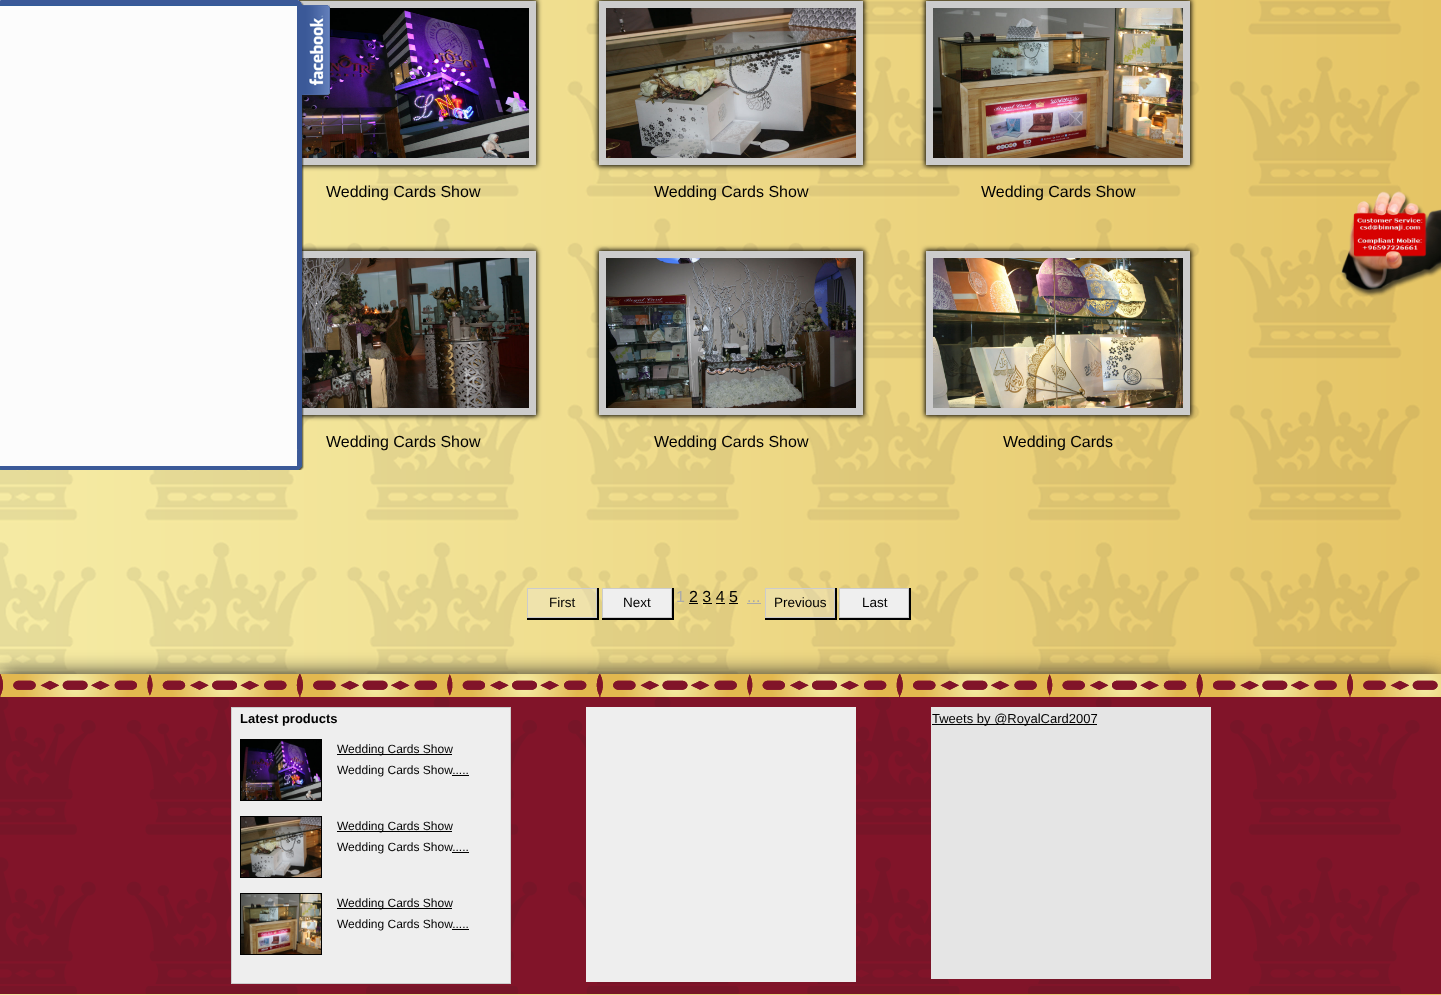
<svg xmlns="http://www.w3.org/2000/svg" width="1441" height="995">
<defs>
<clipPath id="clip1"><path d="M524 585h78v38h-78zm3 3h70v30h-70z" clip-rule="evenodd"/></clipPath>
<clipPath id="clip2"><path d="M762 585h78v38h-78zm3 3h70v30h-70z" clip-rule="evenodd"/></clipPath>
</defs>
<rect width="100%" height="100%" fill="#fff"/>
<image x="0" y="0" width="1441" height="674" href="media/1.png"/>
<rect x="271" width="266" height="166" fill="#000" filter="blur(2.5px)"/>
<rect x="275.5" y="4.5" width="257" height="157" fill="none" stroke="#ccc" stroke-width="7"/>
<image x="302" y="8" width="227" height="150" href="media/3.png"/>
<text x="326" y="197" style="font-family:Liberation Sans;font-size:16px;fill:#000">Wedding Cards Show</text>
<rect x="271" y="250" width="266" height="166" fill="#000" filter="blur(2.5px)"/>
<rect x="275.5" y="254.5" width="257" height="157" fill="none" stroke="#ccc" stroke-width="7"/>
<image x="302" y="258" width="227" height="150" href="media/6.png"/>
<text x="326" y="447" style="font-family:Liberation Sans;font-size:16px;fill:#000">Wedding Cards Show</text>
<image x="0" y="0" width="330" height="470" href="media/2.png"/>
<rect y="6" width="297" height="460" fill="#fcfcfc"/>
<rect x="598" width="266" height="166" fill="#000" filter="blur(2.5px)"/>
<rect x="602.5" y="4.5" width="257" height="157" fill="none" stroke="#ccc" stroke-width="7"/>
<image x="606" y="8" width="250" height="150" href="media/4.png"/>
<text x="654" y="197" style="font-family:Liberation Sans;font-size:16px;fill:#000">Wedding Cards Show</text>
<rect x="925" width="266" height="166" fill="#000" filter="blur(2.5px)"/>
<rect x="929.5" y="4.5" width="257" height="157" fill="none" stroke="#ccc" stroke-width="7"/>
<image x="933" y="8" width="250" height="150" href="media/5.png"/>
<text x="981" y="197" style="font-family:Liberation Sans;font-size:16px;fill:#000">Wedding Cards Show</text>
<rect x="598" y="250" width="266" height="166" fill="#000" filter="blur(2.5px)"/>
<rect x="602.5" y="254.5" width="257" height="157" fill="none" stroke="#ccc" stroke-width="7"/>
<image x="606" y="258" width="250" height="150" href="media/7.png"/>
<text x="654" y="447" style="font-family:Liberation Sans;font-size:16px;fill:#000">Wedding Cards Show</text>
<rect x="925" y="250" width="266" height="166" fill="#000" filter="blur(2.5px)"/>
<rect x="929.5" y="254.5" width="257" height="157" fill="none" stroke="#ccc" stroke-width="7"/>
<image x="933" y="258" width="250" height="150" href="media/8.png"/>
<text x="1003" y="447" style="font-family:Liberation Sans;font-size:16px;fill:#000">Wedding Cards</text>
<g clip-path="url(#clip1)">
<rect x="527" y="588" width="72" height="32" fill="#000" filter="blur(0.5px)"/>
</g>
<rect x="527.5" y="588.5" width="69" height="29" fill="#efefef4d" stroke="#ccc"/>
<text x="549" y="607" style="font-family:Liberation Sans;font-size:13.5px;fill:#000">First</text>
<rect x="602" y="588" width="72" height="32" fill="#000" filter="blur(0.5px)"/>
<rect x="602.5" y="588.5" width="69" height="29" fill="#efefef" stroke="#ccc"/>
<text x="623" y="607" style="font-family:Liberation Sans;font-size:13.5px;fill:#000">Next</text>
<text x="676" y="602" style="font-family:Liberation Sans;font-size:16px;fill:#aaa">1</text>
<text x="689" y="602" style="font-family:Liberation Sans;font-size:16px;fill:#000">2 3 4 5</text>
<rect x="689" y="603" width="9" height="1" fill="#000"/>
<text x="747" y="602" style="font-family:Liberation Sans;font-size:16px;fill:#aaa">...</text>
<rect x="747" y="603" width="14" height="1" fill="#aaa"/>
<g clip-path="url(#clip2)">
<rect x="765" y="588" width="72" height="32" fill="#000" filter="blur(0.5px)"/>
</g>
<rect x="765.5" y="588.5" width="69" height="29" fill="#efefef4d" stroke="#ccc"/>
<text x="774" y="607" style="font-family:Liberation Sans;font-size:13.5px;fill:#000">Previous</text>
<rect x="839" y="588" width="72" height="32" fill="#000" filter="blur(0.5px)"/>
<rect x="839.5" y="588.5" width="69" height="29" fill="#efefef" stroke="#ccc"/>
<text x="862" y="607" style="font-family:Liberation Sans;font-size:13.5px;fill:#000">Last</text>
<rect x="703" y="603" width="9" height="1" fill="#000"/>
<rect x="716" y="603" width="9" height="1" fill="#000"/>
<rect x="729" y="603" width="9" height="1" fill="#000"/>
<image x="1341" y="191" width="100" height="106" href="media/9.png"/>
<rect y="674" width="1441" height="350" fill="#262626" filter="blur(10px)"/>
<image x="0" y="674" width="1441" height="320" href="media/10.png"/>
<image x="0" y="674" width="1441" height="23" href="media/11.png"/>
<rect x="231.5" y="707.5" width="279" height="276" fill="#eee" stroke="#ccc"/>
<text x="240" y="723" style="font-family:Liberation Sans;font-size:13px;font-weight:bold;fill:#000">Latest products</text>
<rect x="240.5" y="739.5" width="81" height="61" fill="none" stroke="#000"/>
<image x="241" y="740" width="80" height="60" href="media/12.png"/>
<rect x="337" y="754" width="115" height="1" fill="#000"/>
<text x="337" y="753" style="font-family:Liberation Sans;font-size:12px;fill:#000">Wedding Cards Show</text>
<text x="337" y="774" style="font-family:Liberation Sans;font-size:12px;fill:#000">Wedding Cards Show.....</text>
<rect x="452" y="775" width="17" height="1" fill="#000"/>
<rect x="240.5" y="816.5" width="81" height="61" fill="none" stroke="#000"/>
<image x="241" y="817" width="80" height="60" href="media/13.png"/>
<rect x="337" y="831" width="115" height="1" fill="#000"/>
<text x="337" y="830" style="font-family:Liberation Sans;font-size:12px;fill:#000">Wedding Cards Show</text>
<text x="337" y="851" style="font-family:Liberation Sans;font-size:12px;fill:#000">Wedding Cards Show.....</text>
<rect x="452" y="852" width="17" height="1" fill="#000"/>
<rect x="240.5" y="893.5" width="81" height="61" fill="none" stroke="#000"/>
<image x="241" y="894" width="80" height="60" href="media/14.png"/>
<rect x="337" y="908" width="115" height="1" fill="#000"/>
<text x="337" y="907" style="font-family:Liberation Sans;font-size:12px;fill:#000">Wedding Cards Show</text>
<text x="337" y="928" style="font-family:Liberation Sans;font-size:12px;fill:#000">Wedding Cards Show.....</text>
<rect x="452" y="929" width="17" height="1" fill="#000"/>
<rect x="586" y="707" width="270" height="275" fill="#eee"/>
<rect x="931" y="707" width="280" height="272" fill="#e5e5e5"/>
<rect x="932" y="724" width="165" height="1" fill="#000"/>
<text x="932" y="723" style="font-family:Liberation Sans;font-size:13px;fill:#000">Tweets by @RoyalCard2007</text>
<image x="0" y="994" width="1441" height="1" href="media/15.png"/>
</svg>
